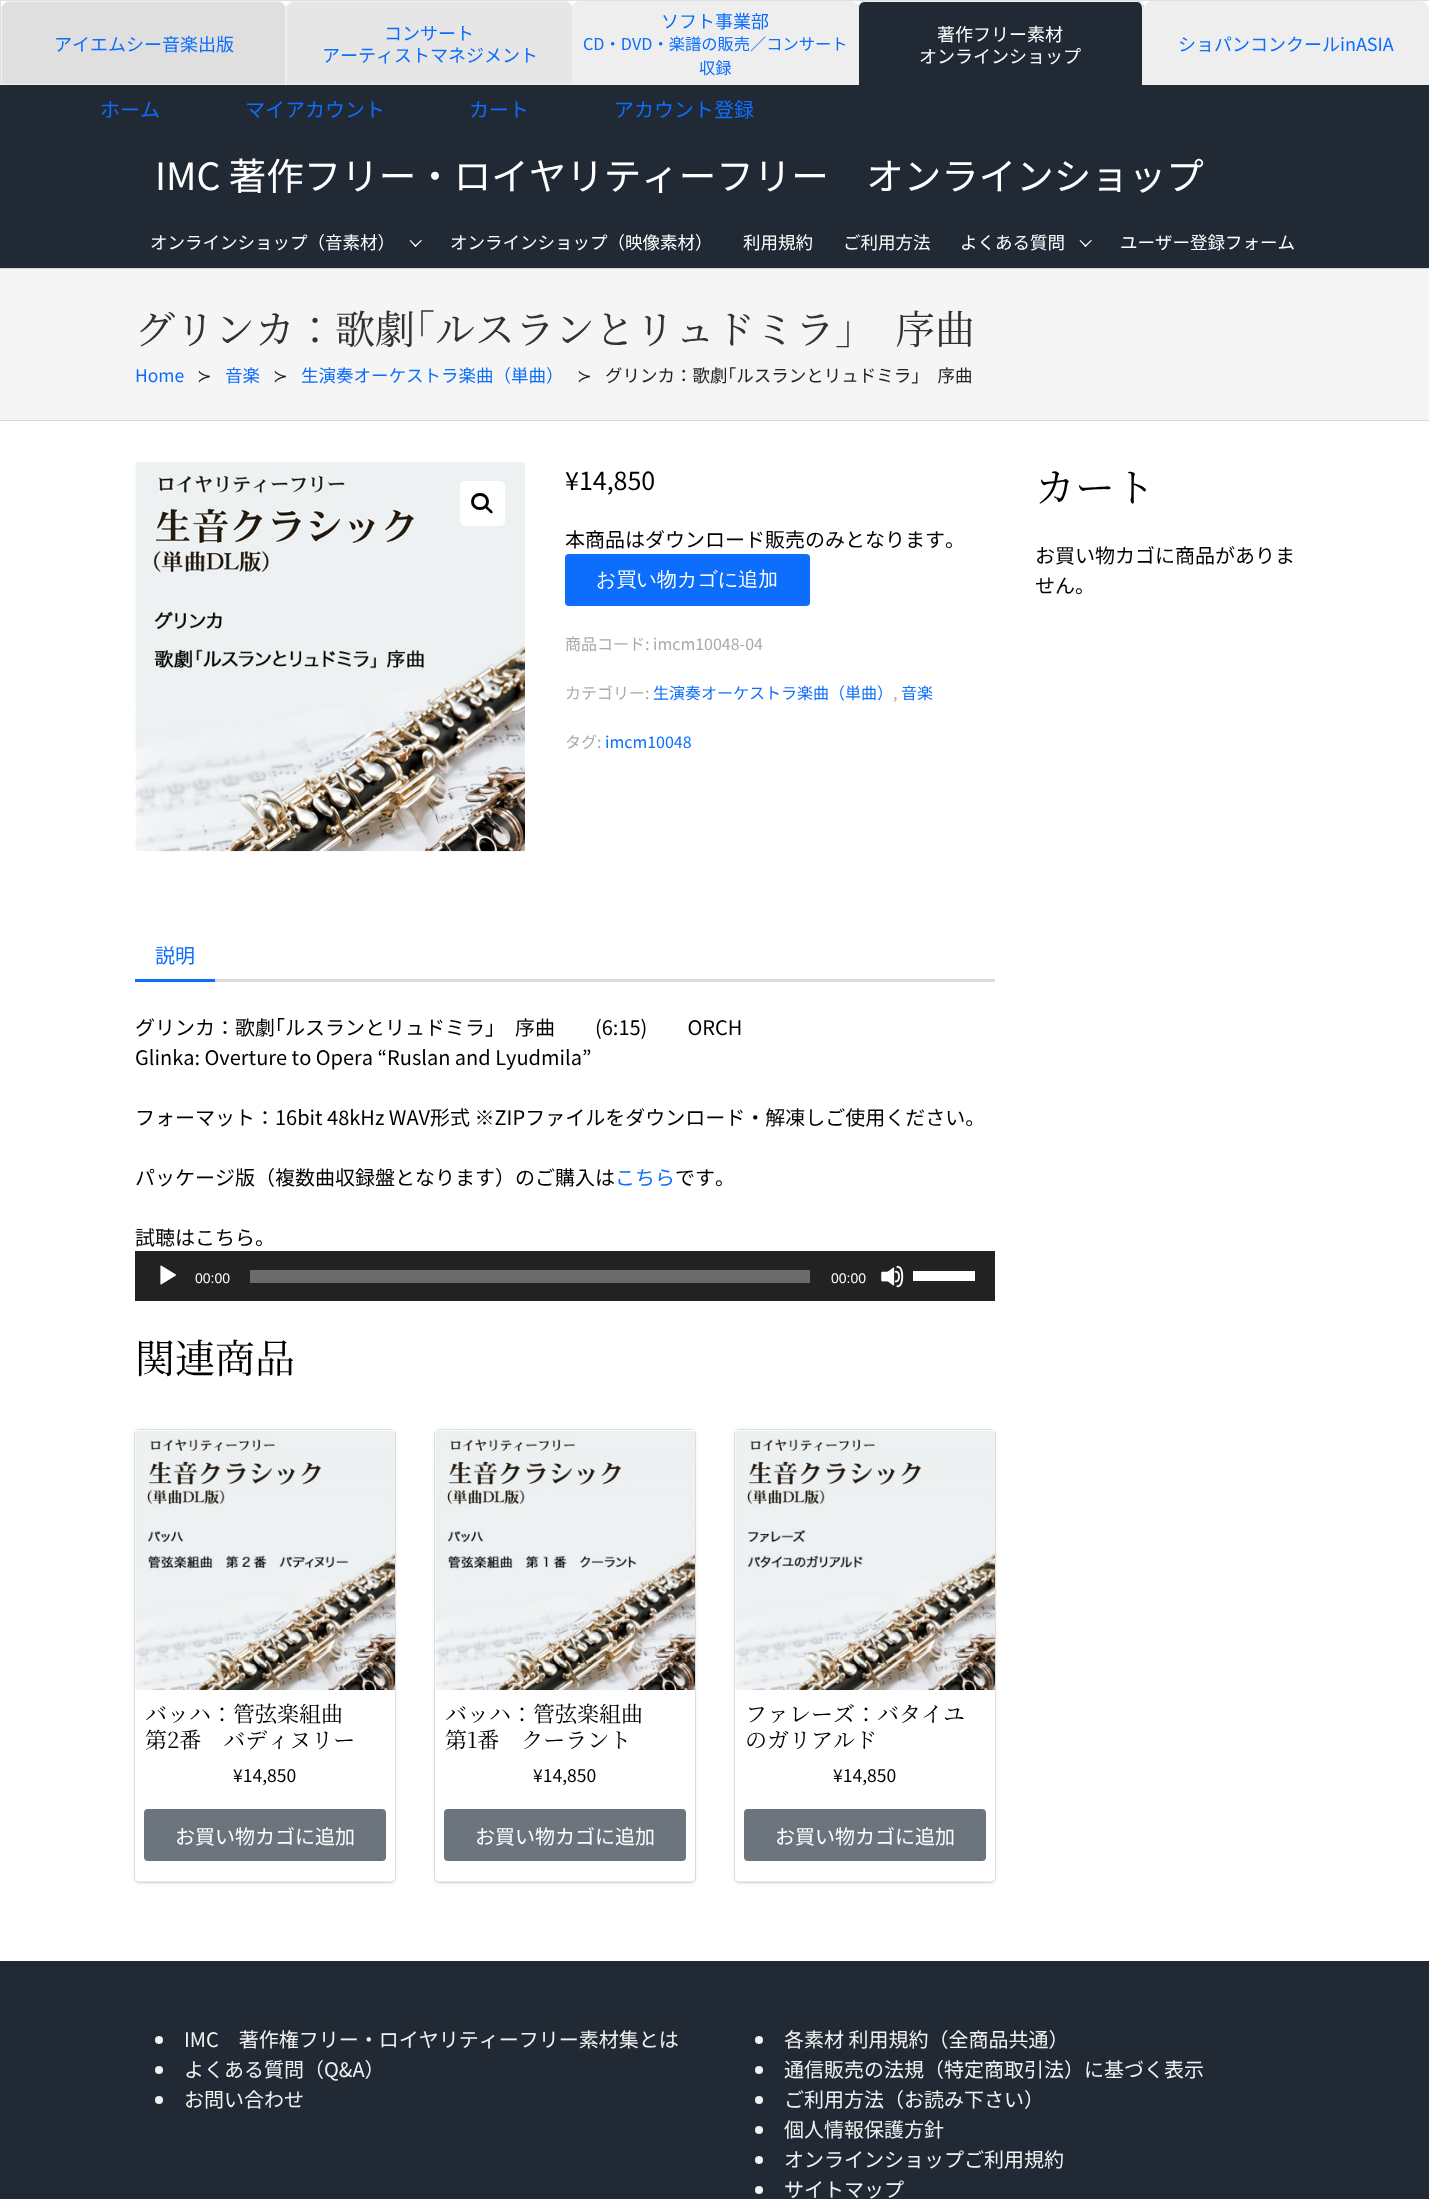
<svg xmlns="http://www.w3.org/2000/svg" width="1429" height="2199">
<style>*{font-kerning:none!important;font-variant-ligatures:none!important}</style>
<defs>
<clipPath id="clip1"><path d="M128 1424h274v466h-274zm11 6h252c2 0 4 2 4 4v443c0 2-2 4-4 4h-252c-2 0-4-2-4-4v-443c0-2 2-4 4-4z" clip-rule="evenodd"/></clipPath>
<clipPath id="clip2"><path d="M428 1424h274v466h-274zm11 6h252c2 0 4 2 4 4v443c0 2-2 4-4 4h-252c-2 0-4-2-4-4v-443c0-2 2-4 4-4z" clip-rule="evenodd"/></clipPath>
<clipPath id="clip3"><path d="M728 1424h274v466h-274zm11 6h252c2 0 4 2 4 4v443c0 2-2 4-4 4h-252c-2 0-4-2-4-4v-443c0-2 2-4 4-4z" clip-rule="evenodd"/></clipPath>
</defs>
<rect width="100%" height="100%" fill="#fff"/>
<path d="M0 0h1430l-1 1h-1428z" fill="#e0e0e0"/>
<path d="M0 85v-85l1 1v84z" fill="#0000001f"/>
<path d="M9 1.5h269c4 0 7.5 3.5 7.5 7.5v75.5h-284v-75.5c0-4 3.5-7.5 7.5-7.5z" fill="#dfdfdf" stroke="#eee"/>
<text x="54" y="51" style="font-family:Noto Sans JP;font-size:18px;fill:#0d6efd">アイエムシー音楽出版</text>
<path d="M294 1.5h271c4 0 7.5 3.5 7.5 7.5v75.5h-286v-75.5c0-4 3.5-7.5 7.5-7.5z" fill="#e6e6e6" stroke="#eee"/>
<text x="384" y="40" style="font-family:Noto Sans JP;font-size:18px;fill:#0d6efd">コンサート</text>
<text x="322" y="62" style="font-family:Noto Sans JP;font-size:18px;fill:#0d6efd">アーティストマネジメント</text>
<path d="M581 1h269c4.5 0 8 3.5 8 8v76h-285v-76c0-4.5 3.5-8 8-8z" fill="#eee"/>
<path d="M580 1h270c4 0 8 3 8 7v77h-286v-77c0-4 4-7 8-7zm0 1h270c4 0 6 3 6 6v77h-282v-77c0-3 2-6 6-6z" fill="#eee" fill-rule="evenodd"/>
<text x="661" y="28" style="font-family:Noto Sans JP;font-size:18px;fill:#0d6efd">ソフト事業部</text>
<text x="583" y="50" style="font-family:Noto Sans JP;font-size:16.25px;fill:#0d6efd">CD・DVD・楽譜の販売／コンサート</text>
<text x="699" y="74" style="font-family:Noto Sans JP;font-size:16.25px;fill:#0d6efd">収録</text>
<path d="M866 1h270c4.5 0 8 3.5 8 8v76h-286v-76c0-4.5 3.5-8 8-8z" fill="#212a34"/>
<path d="M865 1h272c4 0 7 3 7 7v77h-286v-77c0-4 3-7 7-7zm0 1h272c3 0 5 3 5 6v77h-283v-77c0-3 2-6 6-6z" fill="#eee" fill-rule="evenodd"/>
<text x="937" y="41" style="font-family:Noto Sans JP;font-size:18px;fill:#fff">著作フリー素材</text>
<text x="919" y="63" style="font-family:Noto Sans JP;font-size:18px;fill:#fff">オンラインショップ</text>
<path d="M1152 1.5h269c4 0 7.5 3.5 7.5 7.5v75.5h-284v-75.5c0-4 3.5-7.5 7.5-7.5z" fill="#eee" stroke="#eee"/>
<text x="1178" y="51" style="font-family:Noto Sans JP;font-size:18px;fill:#0d6efd">ショパンコンクールinASIA</text>
<rect y="85" width="1429" height="183" fill="#212a34"/>
<text x="100" y="117" style="font-family:Noto Sans JP;font-size:20px;fill:#0d6efd">ホーム</text>
<text x="245" y="117" style="font-family:Noto Sans JP;font-size:20px;fill:#0d6efd">マイアカウント</text>
<text x="469" y="117" style="font-family:Noto Sans JP;font-size:20px;fill:#0d6efd">カート</text>
<text x="614" y="117" style="font-family:Noto Sans JP;font-size:20px;fill:#0d6efd">アカウント登録</text>
<text x="155" y="190" style="font-family:Noto Sans JP;font-size:37.5px;fill:#fff">IMC 著作フリー・ロイヤリティーフリー　オンラインショップ</text>
<text x="150" y="249" style="font-family:Noto Sans JP;font-size:17.5px;fill:#fff">オンラインショップ（音素材）</text>
<path d="M421 240l1 .5l-6.5 6.5l-1-1z" fill="#fff"/>
<path d="M410.5 240l6 6l-1 1l-6-6.5z" fill="#fff"/>
<text x="450" y="249" style="font-family:Noto Sans JP;font-size:17.5px;fill:#fff">オンラインショップ（映像素材）</text>
<text x="743" y="249" style="font-family:Noto Sans JP;font-size:17.5px;fill:#fff">利用規約</text>
<text x="843" y="249" style="font-family:Noto Sans JP;font-size:17.5px;fill:#fff">ご利用方法</text>
<text x="960" y="249" style="font-family:Noto Sans JP;font-size:17.5px;fill:#fff">よくある質問</text>
<path d="M1091 240l1 .5l-6.5 6.5l-1-1z" fill="#fff"/>
<path d="M1080.5 240l6 6l-1 1l-6-6.5z" fill="#fff"/>
<text x="1120" y="249" style="font-family:Noto Sans JP;font-size:17.5px;fill:#fff">ユーザー登録フォーム</text>
<rect y="269" width="1429" height="151" fill="#f5f5f5"/>
<rect y="268" width="1429" height="1" fill="#d8d8d8"/>
<rect y="420" width="1429" height="1" fill="#d8d8d8"/>
<text x="135" y="344" style="font-family:Noto Serif JP;font-size:40px;font-weight:200;fill:#323232">グリンカ：歌劇｢ルスランとリュドミラ｣　序曲</text>
<text x="135" y="382" style="font-family:Noto Sans JP;font-size:17.5px;fill:#0d6efd">Home</text>
<text x="197" y="382" style="font-family:DejaVu Sans;font-size:17.5px;fill:#202020">≻</text>
<text x="225" y="382" style="font-family:Noto Sans JP;font-size:17.5px;fill:#0d6efd">音楽</text>
<text x="273" y="382" style="font-family:DejaVu Sans;font-size:17.5px;fill:#202020">≻</text>
<text x="301" y="382" style="font-family:Noto Sans JP;font-size:17.5px;fill:#0d6efd">生演奏オーケストラ楽曲（単曲）</text>
<text x="577" y="382" style="font-family:DejaVu Sans;font-size:17.5px;fill:#202020">≻</text>
<text x="605" y="382" style="font-family:Noto Sans JP;font-size:17.5px;fill:#202020">グリンカ：歌劇｢ルスランとリュドミラ｣　序曲</text>
<image x="135" y="462" width="390" height="390" href="media/1.png"/>
<rect x="460" y="481" width="45" height="45" rx="5" fill="#fff"/>
<rect x="472.5" y="494.5" width="15" height="14" rx="7" fill="none" stroke="#000" stroke-width="3"/>
<path d="M485 506c1.5-1.5 4 2 4.5 2.5c1 1 4 3 3 4.5c-1.5 1.5-4-2-4.5-2.5c-1-1-4-3-3-4.5z" fill="#000"/>
<text x="565" y="490" style="font-family:Noto Sans JP;font-size:25px;fill:#000">¥14,850</text>
<text x="565" y="547" style="font-family:Noto Sans JP;font-size:20px;fill:#000">本商品はダウンロード販売のみとなります。</text>
<rect x="565" y="554" width="245" height="52" rx="4" fill="#0d6efd"/>
<text x="596" y="586" style="font-family:WenQuanYi Zen Hei;font-size:20px;font-weight:500;fill:#fff">お買い物カゴに追加</text>
<text x="565" y="650" style="font-family:Noto Sans JP;font-size:16px;fill:#aaa">商品コード: imcm10048-04</text>
<text x="565" y="699" style="font-family:Noto Sans JP;font-size:16px;fill:#aaa">カテゴリー:</text>
<text x="653" y="699" style="font-family:Noto Sans JP;font-size:16px;fill:#0d6efd">生演奏オーケストラ楽曲（単曲）</text>
<text x="893" y="699" style="font-family:Noto Sans JP;font-size:16px;fill:#aaa">,</text>
<text x="901" y="699" style="font-family:Noto Sans JP;font-size:16px;fill:#0d6efd">音楽</text>
<text x="565" y="748" style="font-family:Noto Sans JP;font-size:16px;fill:#aaa">タグ:</text>
<text x="605" y="748" style="font-family:Noto Sans JP;font-size:16px;fill:#0d6efd">imcm10048</text>
<rect x="215" y="979" width="780" height="3" fill="#dbdbdb"/>
<rect x="135" y="979" width="80" height="3" fill="#0d6efd"/>
<text x="155" y="963" style="font-family:Noto Sans JP;font-size:20px;fill:#0d6efd">説明</text>
<text x="135" y="1035" style="font-family:Noto Sans JP;font-size:20px;fill:#000">グリンカ：歌劇｢ルスランとリュドミラ｣　序曲　　(6:15)　　ORCH</text>
<text x="135" y="1065" style="font-family:Noto Sans JP;font-size:20px;fill:#000">Glinka: Overture to Opera “Ruslan and Lyudmila”</text>
<text x="135" y="1125" style="font-family:Noto Sans JP;font-size:20px;fill:#000">フォーマット：16bit 48kHz WAV形式 ※ZIPファイルをダウンロード・解凍しご使用ください。</text>
<text x="135" y="1185" style="font-family:Noto Sans JP;font-size:20px;fill:#000">パッケージ版（複数曲収録盤となります）のご購入は</text>
<text x="615" y="1185" style="font-family:Noto Sans JP;font-size:20px;fill:#0d6efd">こちら</text>
<text x="675" y="1185" style="font-family:Noto Sans JP;font-size:20px;fill:#000">です。</text>
<text x="135" y="1245" style="font-family:Noto Sans JP;font-size:20px;fill:#000">試聴はこちら。</text>
<rect x="135" y="1251" width="860" height="50" fill="#222"/>
<image x="160" y="1265" width="16" height="20" href="media/2.png"/>
<text x="195" y="1283" style="font-family:Liberation Sans;font-size:14px;fill:#fff">00:00</text>
<rect x="250" y="1270" width="560" height="13" fill="#6b6b6b"/>
<text x="831" y="1283" style="font-family:Liberation Sans;font-size:14px;fill:#fff">00:00</text>
<image x="881" y="1265" width="23" height="23" href="media/3.png"/>
<rect x="913" y="1271" width="62" height="10" fill="#fff"/>
<text x="135" y="1373" style="font-family:Noto Serif JP;font-size:40px;font-weight:200;fill:#000">関連商品</text>
<rect x="134.5" y="1429.5" width="261" height="453" rx="4.5" fill="none" stroke="#e6e6e6"/>
<g clip-path="url(#clip1)">
<rect x="135" y="1431" width="260" height="452" rx="4" fill="#0000001a" filter="blur(2px)"/>
</g>
<image x="135" y="1430" width="260" height="260" href="media/4.png"/>
<text x="145" y="1722" style="font-family:Noto Serif JP;font-size:22px;font-weight:200;fill:#000">バッハ：管弦楽組曲</text>
<text x="145" y="1748" style="font-family:Noto Serif JP;font-size:22px;font-weight:200;fill:#000">第2番　バディヌリー</text>
<text x="233" y="1782" style="font-family:Noto Sans JP;font-size:17.5px;fill:#000">¥14,850</text>
<rect x="144" y="1809" width="242" height="52" rx="4" fill="#6c757d"/>
<text x="175" y="1844" style="font-family:Noto Sans JP;font-size:20px;fill:#fff">お買い物カゴに追加</text>
<rect x="434.5" y="1429.5" width="261" height="453" rx="4.5" fill="none" stroke="#e6e6e6"/>
<g clip-path="url(#clip2)">
<rect x="435" y="1431" width="260" height="452" rx="4" fill="#0000001a" filter="blur(2px)"/>
</g>
<image x="435" y="1430" width="260" height="260" href="media/5.png"/>
<text x="445" y="1722" style="font-family:Noto Serif JP;font-size:22px;font-weight:200;fill:#000">バッハ：管弦楽組曲</text>
<text x="445" y="1748" style="font-family:Noto Serif JP;font-size:22px;font-weight:200;fill:#000">第1番　クーラント</text>
<text x="533" y="1782" style="font-family:Noto Sans JP;font-size:17.5px;fill:#000">¥14,850</text>
<rect x="444" y="1809" width="242" height="52" rx="4" fill="#6c757d"/>
<text x="475" y="1844" style="font-family:Noto Sans JP;font-size:20px;fill:#fff">お買い物カゴに追加</text>
<rect x="734.5" y="1429.5" width="261" height="453" rx="4.5" fill="none" stroke="#e6e6e6"/>
<g clip-path="url(#clip3)">
<rect x="735" y="1431" width="260" height="452" rx="4" fill="#0000001a" filter="blur(2px)"/>
</g>
<image x="735" y="1430" width="260" height="260" href="media/6.png"/>
<text x="745" y="1722" style="font-family:Noto Serif JP;font-size:22px;font-weight:200;fill:#000">ファレーズ：バタイユ</text>
<text x="745" y="1748" style="font-family:Noto Serif JP;font-size:22px;font-weight:200;fill:#000">のガリアルド</text>
<text x="833" y="1782" style="font-family:Noto Sans JP;font-size:17.5px;fill:#000">¥14,850</text>
<rect x="744" y="1809" width="242" height="52" rx="4" fill="#6c757d"/>
<text x="775" y="1844" style="font-family:Noto Sans JP;font-size:20px;fill:#fff">お買い物カゴに追加</text>
<text x="1035" y="502" style="font-family:Noto Serif JP;font-size:40px;font-weight:200;fill:#000">カート</text>
<text x="1035" y="563" style="font-family:Noto Sans JP;font-size:20px;fill:#000">お買い物カゴに商品がありま</text>
<text x="1035" y="593" style="font-family:Noto Sans JP;font-size:20px;fill:#000">せん。</text>
<rect y="1961" width="1429" height="238" fill="#212a34"/>
<circle cx="159" cy="2040" r="4" fill="#f1f1f1"/>
<text x="184" y="2047" style="font-family:Noto Sans JP;font-size:20px;fill:#f1f1f1">IMC　著作権フリー・ロイヤリティーフリー素材集とは</text>
<circle cx="159" cy="2070" r="4" fill="#f1f1f1"/>
<text x="184" y="2077" style="font-family:Noto Sans JP;font-size:20px;fill:#f1f1f1">よくある質問（Q&amp;A）</text>
<circle cx="159" cy="2100" r="4" fill="#f1f1f1"/>
<text x="184" y="2107" style="font-family:Noto Sans JP;font-size:20px;fill:#f1f1f1">お問い合わせ</text>
<circle cx="759" cy="2040" r="4" fill="#f1f1f1"/>
<text x="784" y="2047" style="font-family:Noto Sans JP;font-size:20px;fill:#f1f1f1">各素材 利用規約（全商品共通）</text>
<circle cx="759" cy="2070" r="4" fill="#f1f1f1"/>
<text x="784" y="2077" style="font-family:Noto Sans JP;font-size:20px;fill:#f1f1f1">通信販売の法規（特定商取引法）に基づく表示</text>
<circle cx="759" cy="2100" r="4" fill="#f1f1f1"/>
<text x="784" y="2107" style="font-family:Noto Sans JP;font-size:20px;fill:#f1f1f1">ご利用方法（お読み下さい）</text>
<circle cx="759" cy="2130" r="4" fill="#f1f1f1"/>
<text x="784" y="2137" style="font-family:Noto Sans JP;font-size:20px;fill:#f1f1f1">個人情報保護方針</text>
<circle cx="759" cy="2160" r="4" fill="#f1f1f1"/>
<text x="784" y="2167" style="font-family:Noto Sans JP;font-size:20px;fill:#f1f1f1">オンラインショップご利用規約</text>
<circle cx="759" cy="2190" r="4" fill="#f1f1f1"/>
<text x="784" y="2197" style="font-family:Noto Sans JP;font-size:20px;fill:#f1f1f1">サイトマップ</text>
</svg>
